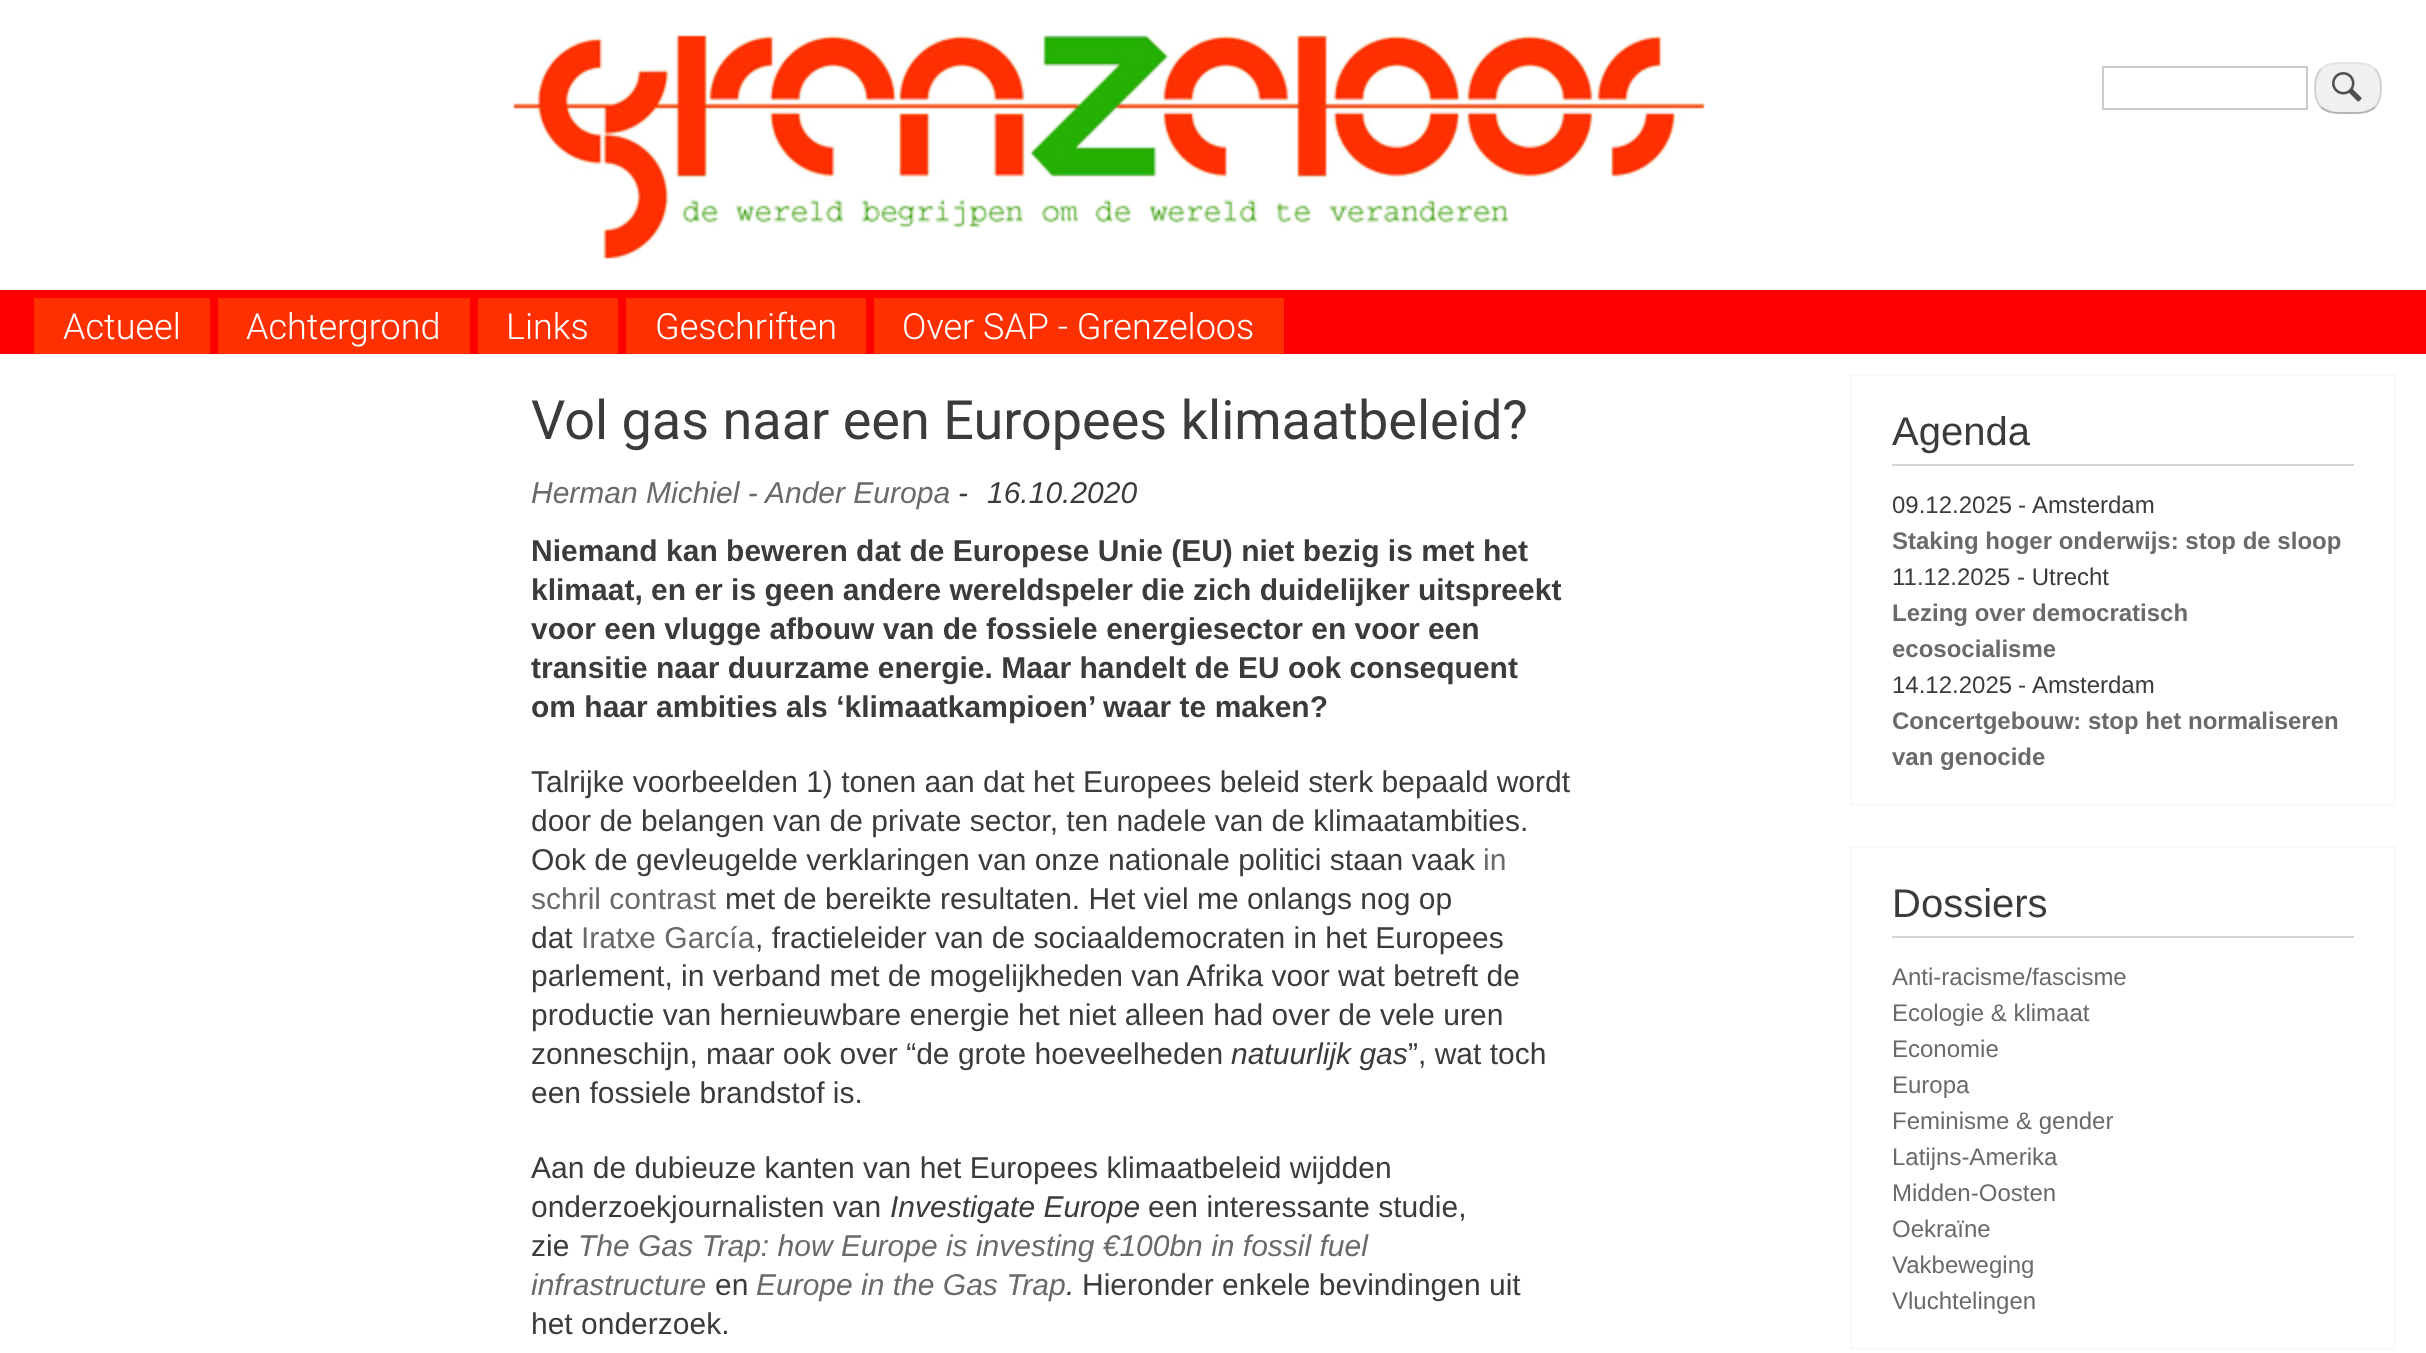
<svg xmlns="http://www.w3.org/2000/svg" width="2426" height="1353">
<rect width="100%" height="100%" fill="#fff"/>
<image x="513" y="35" width="1192" height="224" href="media/1.png"/>
<rect x="2103" y="67" width="204" height="42" fill="none" stroke="#ccc" stroke-width="2"/>
<rect x="2314" y="62" width="68" height="52" rx="22" fill="#f0f0f0"/>
<image x="2332" y="72" width="30" height="30" href="media/2.png"/>
<path d="M2321 69c7.5-7 17.5-6 27-6c9.5 0 19.5-1 27 6" fill="none" stroke="#e4e4e4" stroke-width="2"/>
<path d="M2375 69c5 5.5 6 11.5 6 19c0 7.5-1 13.5-6 19" fill="none" stroke="#d2d2d2" stroke-width="2"/>
<path d="M2375 107c-7.5 7-17.5 6-27 6c-9.5 0-19.5 1-27-6" fill="none" stroke="#b4b4b4" stroke-width="2"/>
<path d="M2321 107c-5-5.5-6-11.5-6-19c0-7.5 1-13.5 6-19" fill="none" stroke="#d2d2d2" stroke-width="2"/>
<rect y="290" width="2426" height="64" fill="#f00"/>
<rect x="34" y="298" width="176" height="56" fill="#fe3000"/>
<text x="63" y="339" style="font-family:Roboto;font-size:36px;font-weight:300;fill:#fff">Actueel</text>
<rect x="218" y="298" width="252" height="56" fill="#fe3000"/>
<text x="246" y="339" style="font-family:Roboto;font-size:36px;font-weight:300;fill:#fff">Achtergrond</text>
<rect x="478" y="298" width="140" height="56" fill="#fe3000"/>
<text x="506" y="339" style="font-family:Roboto;font-size:36px;font-weight:300;fill:#fff">Links</text>
<rect x="626" y="298" width="240" height="56" fill="#fe3000"/>
<text x="655" y="339" style="font-family:Roboto;font-size:36px;font-weight:300;fill:#fff">Geschriften</text>
<rect x="874" y="298" width="410" height="56" fill="#fe3000"/>
<text x="902" y="339" style="font-family:Roboto;font-size:36px;font-weight:300;fill:#fff">Over SAP - Grenzeloos</text>
<text x="531" y="439" style="font-family:Roboto;font-size:54px;fill:#3b3b3b">Vol gas naar een Europees klimaatbeleid?</text>
<text x="531" y="503" style="font-family:Liberation Sans;font-size:30px;font-style:italic;fill:#6b6969">Herman Michiel - Ander Europa</text>
<text x="958" y="503" style="font-family:Liberation Sans;font-size:30px;font-style:italic;fill:#3b3b3b">-</text>
<text x="987" y="503" style="font-family:Liberation Sans;font-size:30px;font-style:italic;fill:#3b3b3b">16.10.2020</text>
<text x="531" y="561" style="font-family:Liberation Sans;font-size:30px;font-weight:bold;fill:#3b3b3b">Niemand kan beweren dat de Europese Unie (EU) niet bezig is met het</text>
<text x="531" y="600" style="font-family:Liberation Sans;font-size:30px;font-weight:bold;fill:#3b3b3b">klimaat, en er is geen andere wereldspeler die zich duidelijker uitspreekt</text>
<text x="531" y="639" style="font-family:Liberation Sans;font-size:30px;font-weight:bold;fill:#3b3b3b">voor een vlugge afbouw van de fossiele energiesector en voor een</text>
<text x="531" y="678" style="font-family:Liberation Sans;font-size:30px;font-weight:bold;fill:#3b3b3b">transitie naar duurzame energie. Maar handelt de EU ook consequent</text>
<text x="531" y="717" style="font-family:Liberation Sans;font-size:30px;font-weight:bold;fill:#3b3b3b">om haar ambities als ‘klimaatkampioen’ waar te maken?</text>
<text x="531" y="792" style="font-family:Liberation Sans;font-size:30px;fill:#3b3b3b">Talrijke voorbeelden 1) tonen aan dat het Europees beleid sterk bepaald wordt</text>
<text x="531" y="831" style="font-family:Liberation Sans;font-size:30px;fill:#3b3b3b">door de belangen van de private sector, ten nadele van de klimaatambities.</text>
<text x="531" y="870" style="font-family:Liberation Sans;font-size:30px;fill:#3b3b3b">Ook de gevleugelde verklaringen van onze nationale politici staan vaak</text>
<text x="1483" y="870" style="font-family:Liberation Sans;font-size:30px;fill:#6b6969">in</text>
<text x="531" y="909" style="font-family:Liberation Sans;font-size:30px;fill:#6b6969">schril contrast</text>
<text x="725" y="909" style="font-family:Liberation Sans;font-size:30px;fill:#3b3b3b">met de bereikte resultaten. Het viel me onlangs nog op</text>
<text x="531" y="948" style="font-family:Liberation Sans;font-size:30px;fill:#3b3b3b">dat</text>
<text x="581" y="948" style="font-family:Liberation Sans;font-size:30px;fill:#6b6969">Iratxe García</text>
<text x="755" y="948" style="font-family:Liberation Sans;font-size:30px;fill:#3b3b3b">, fractieleider van de sociaaldemocraten in het Europees</text>
<text x="531" y="986" style="font-family:Liberation Sans;font-size:30px;fill:#3b3b3b">parlement, in verband met de mogelijkheden van Afrika voor wat betreft de</text>
<text x="531" y="1025" style="font-family:Liberation Sans;font-size:30px;fill:#3b3b3b">productie van hernieuwbare energie het niet alleen had over de vele uren</text>
<text x="531" y="1064" style="font-family:Liberation Sans;font-size:30px;fill:#3b3b3b">zonneschijn, maar ook over “de grote hoeveelheden</text>
<text x="1231" y="1064" style="font-family:Liberation Sans;font-size:30px;font-style:italic;fill:#3b3b3b">natuurlijk gas</text>
<text x="1408" y="1064" style="font-family:Liberation Sans;font-size:30px;fill:#3b3b3b">”, wat toch</text>
<text x="531" y="1103" style="font-family:Liberation Sans;font-size:30px;fill:#3b3b3b">een fossiele brandstof is.</text>
<text x="531" y="1178" style="font-family:Liberation Sans;font-size:30px;fill:#3b3b3b">Aan de dubieuze kanten van het Europees klimaatbeleid wijdden</text>
<text x="531" y="1217" style="font-family:Liberation Sans;font-size:30px;fill:#3b3b3b">onderzoekjournalisten van</text>
<text x="890" y="1217" style="font-family:Liberation Sans;font-size:30px;font-style:italic;fill:#3b3b3b">Investigate Europe</text>
<text x="1148" y="1217" style="font-family:Liberation Sans;font-size:30px;fill:#3b3b3b">een interessante studie,</text>
<text x="531" y="1256" style="font-family:Liberation Sans;font-size:30px;fill:#3b3b3b">zie</text>
<text x="578" y="1256" style="font-family:Liberation Sans;font-size:30px;font-style:italic;fill:#6b6969">The Gas Trap: how Europe is investing €100bn in fossil fuel</text>
<text x="531" y="1295" style="font-family:Liberation Sans;font-size:30px;font-style:italic;fill:#6b6969">infrastructure</text>
<text x="715" y="1295" style="font-family:Liberation Sans;font-size:30px;fill:#3b3b3b">en</text>
<text x="756" y="1295" style="font-family:Liberation Sans;font-size:30px;font-style:italic;fill:#6b6969">Europe in the Gas Trap</text>
<text x="1066" y="1295" style="font-family:Liberation Sans;font-size:30px;font-style:italic;fill:#3b3b3b">.</text>
<text x="1082" y="1295" style="font-family:Liberation Sans;font-size:30px;fill:#3b3b3b">Hieronder enkele bevindingen uit</text>
<text x="531" y="1334" style="font-family:Liberation Sans;font-size:30px;fill:#3b3b3b">het onderzoek.</text>
<rect x="1851" y="375" width="544" height="430" fill="none" stroke="#f9f9f9" stroke-width="2"/>
<rect x="1892" y="464" width="462" height="2" fill="#d6d6d6"/>
<text x="1892" y="445" style="font-family:Liberation Sans;font-size:40px;fill:#3b3b3b">Agenda</text>
<text x="1892" y="513" style="font-family:Liberation Sans;font-size:24px;fill:#3b3b3b">09.12.2025</text>
<text x="2018" y="513" style="font-family:Liberation Sans;font-size:24px;fill:#3b3b3b">-</text>
<text x="2032" y="513" style="font-family:Liberation Sans;font-size:24px;fill:#3b3b3b">Amsterdam</text>
<text x="1892" y="549" style="font-family:Liberation Sans;font-size:24px;font-weight:bold;fill:#6b6969">Staking hoger onderwijs: stop de sloop</text>
<text x="1892" y="585" style="font-family:Liberation Sans;font-size:24px;fill:#3b3b3b">11.12.2025 - Utrecht</text>
<text x="1892" y="621" style="font-family:Liberation Sans;font-size:24px;font-weight:bold;fill:#6b6969">Lezing over democratisch</text>
<text x="1892" y="657" style="font-family:Liberation Sans;font-size:24px;font-weight:bold;fill:#6b6969">ecosocialisme</text>
<text x="1892" y="693" style="font-family:Liberation Sans;font-size:24px;fill:#3b3b3b">14.12.2025</text>
<text x="2018" y="693" style="font-family:Liberation Sans;font-size:24px;fill:#3b3b3b">-</text>
<text x="2032" y="693" style="font-family:Liberation Sans;font-size:24px;fill:#3b3b3b">Amsterdam</text>
<text x="1892" y="729" style="font-family:Liberation Sans;font-size:24px;font-weight:bold;fill:#6b6969">Concertgebouw: stop het normaliseren</text>
<text x="1892" y="765" style="font-family:Liberation Sans;font-size:24px;font-weight:bold;fill:#6b6969">van genocide</text>
<rect x="1851" y="847" width="544" height="502" fill="none" stroke="#f9f9f9" stroke-width="2"/>
<rect x="1892" y="936" width="462" height="2" fill="#d6d6d6"/>
<text x="1892" y="917" style="font-family:Liberation Sans;font-size:40px;fill:#3b3b3b">Dossiers</text>
<text x="1892" y="985" style="font-family:Liberation Sans;font-size:24px;fill:#6b6969">Anti-racisme/fascisme</text>
<text x="1892" y="1021" style="font-family:Liberation Sans;font-size:24px;fill:#6b6969">Ecologie &amp; klimaat</text>
<text x="1892" y="1057" style="font-family:Liberation Sans;font-size:24px;fill:#6b6969">Economie</text>
<text x="1892" y="1093" style="font-family:Liberation Sans;font-size:24px;fill:#6b6969">Europa</text>
<text x="1892" y="1129" style="font-family:Liberation Sans;font-size:24px;fill:#6b6969">Feminisme &amp; gender</text>
<text x="1892" y="1165" style="font-family:Liberation Sans;font-size:24px;fill:#6b6969">Latijns-Amerika</text>
<text x="1892" y="1201" style="font-family:Liberation Sans;font-size:24px;fill:#6b6969">Midden-Oosten</text>
<text x="1892" y="1237" style="font-family:Liberation Sans;font-size:24px;fill:#6b6969">Oekraïne</text>
<text x="1892" y="1273" style="font-family:Liberation Sans;font-size:24px;fill:#6b6969">Vakbeweging</text>
<text x="1892" y="1309" style="font-family:Liberation Sans;font-size:24px;fill:#6b6969">Vluchtelingen</text>
</svg>
